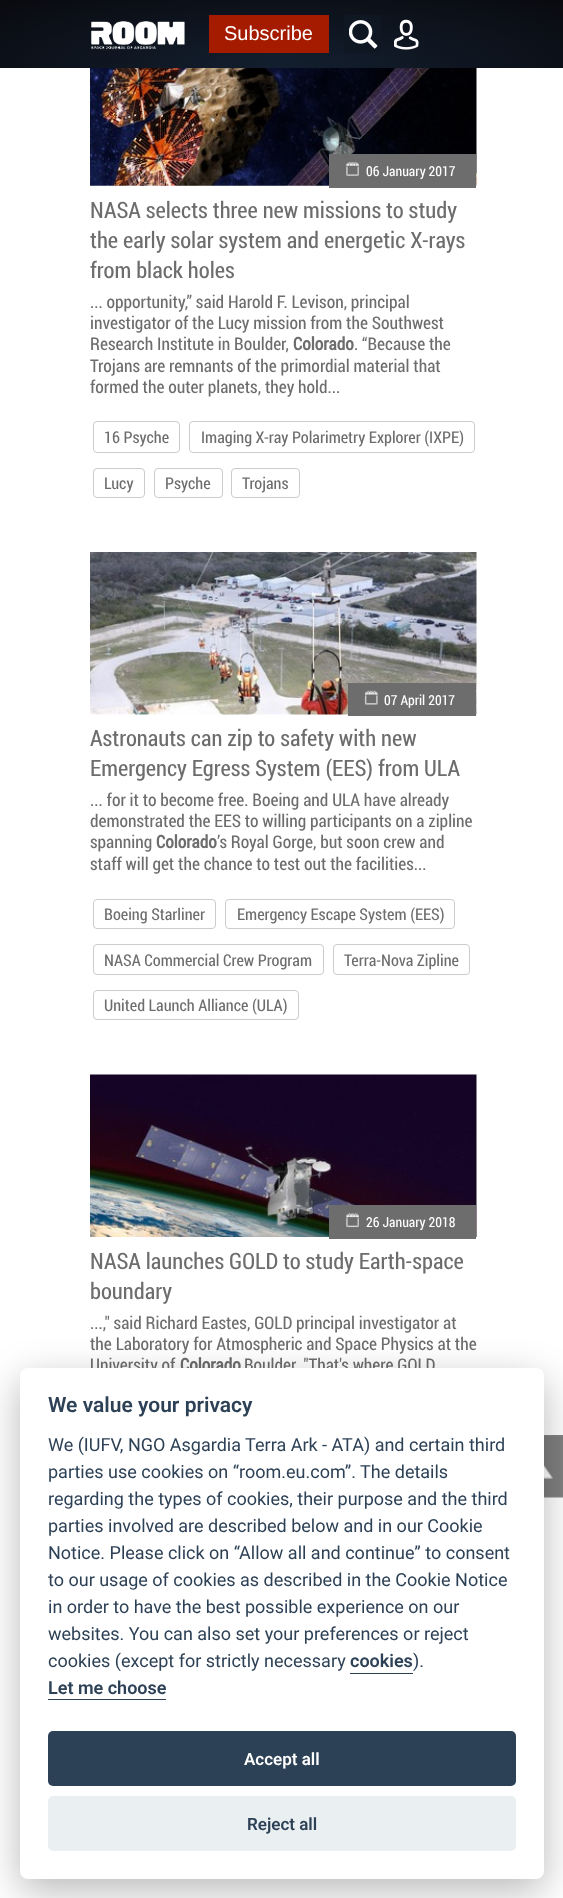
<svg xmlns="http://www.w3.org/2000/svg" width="563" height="1898">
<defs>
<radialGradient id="g1" gradientUnits="userSpaceOnUse" cx="0" cy="0" r="1" gradientTransform="matrix(399 0 0 95 282 68)"><stop offset="0" stop-color="#131f2f"/><stop offset="1" stop-color="#090a0f"/></radialGradient>
</defs>
<rect width="100%" height="100%" fill="#fff"/>
<rect width="563" height="68" fill="url(#g1)"/>
<image x="91" y="21" width="94" height="29" href="media/1.png"/>
<rect x="209" y="15" width="120" height="38" fill="#a51b00"/>
<text x="224" y="40" style="font-family:Liberation Sans;font-size:20px;fill:#fff">Subscribe</text>
<rect x="344" y="15" width="37" height="38" fill="#0f1722"/>
<image x="349" y="20" width="29" height="29" href="media/2.png"/>
<image x="394" y="19" width="25" height="31" href="media/3.png"/>
<image x="90" y="68" width="388" height="118" href="media/4.png"/>
<rect x="329" y="154" width="147" height="34" fill="#6d6d6d"/>
<image x="346" y="161" width="13" height="15" href="media/5.png"/>
<text x="366" y="176" style="font-family:Roboto Condensed;font-size:13.75px;fill:#fff">06 January 2017</text>
<text x="90" y="218" style="font-family:Roboto Condensed;font-size:22.5px;fill:#6d6d6d">NASA selects three new missions to study</text>
<text x="90" y="248" style="font-family:Roboto Condensed;font-size:22.5px;fill:#6d6d6d">the early solar system and energetic X-rays</text>
<text x="90" y="278" style="font-family:Roboto Condensed;font-size:22.5px;fill:#6d6d6d">from black holes</text>
<text x="90" y="308" style="font-family:Roboto Condensed;font-size:17.5px;fill:#6d6d6d">... opportunity,” said Harold F. Levison, principal</text>
<text x="90" y="329" style="font-family:Roboto Condensed;font-size:17.5px;fill:#6d6d6d">investigator of the Lucy mission from the Southwest</text>
<text x="90" y="350" style="font-family:Roboto Condensed;font-size:17.5px;fill:#6d6d6d">Research Institute in Boulder,</text>
<text x="293" y="350" style="font-family:Roboto Condensed;font-size:17.5px;font-weight:bold;fill:#6d6d6d">Colorado</text>
<text x="354" y="350" style="font-family:Roboto Condensed;font-size:17.5px;fill:#6d6d6d">. “Because the</text>
<text x="90" y="372" style="font-family:Roboto Condensed;font-size:17.5px;fill:#6d6d6d">Trojans are remnants of the primordial material that</text>
<text x="90" y="393" style="font-family:Roboto Condensed;font-size:17.5px;fill:#6d6d6d">formed the outer planets, they hold...</text>
<rect x="93.5" y="421.5" width="86" height="31" rx="3.5" fill="none" stroke="#ccc"/>
<text x="104" y="443" style="font-family:Roboto Condensed;font-size:16.25px;fill:#6d6d6d">16 Psyche</text>
<rect x="189.5" y="421.5" width="285" height="31" rx="3.5" fill="none" stroke="#ccc"/>
<text x="201" y="443" style="font-family:Roboto Condensed;font-size:16.25px;fill:#6d6d6d">Imaging X-ray Polarimetry Explorer (IXPE)</text>
<rect x="93.5" y="468.5" width="51" height="29" rx="3.5" fill="none" stroke="#ccc"/>
<text x="104" y="489" style="font-family:Roboto Condensed;font-size:16.25px;fill:#6d6d6d">Lucy</text>
<rect x="154.5" y="468.5" width="68" height="29" rx="3.5" fill="none" stroke="#ccc"/>
<text x="165" y="489" style="font-family:Roboto Condensed;font-size:16.25px;fill:#6d6d6d">Psyche</text>
<rect x="231.5" y="468.5" width="68" height="29" rx="3.5" fill="none" stroke="#ccc"/>
<text x="242" y="489" style="font-family:Roboto Condensed;font-size:16.25px;fill:#6d6d6d">Trojans</text>
<image x="90" y="552" width="387" height="163" href="media/6.png"/>
<rect x="348" y="683" width="128" height="33" fill="#6d6d6d"/>
<image x="364" y="690" width="14" height="15" href="media/7.png"/>
<text x="384" y="705" style="font-family:Roboto Condensed;font-size:13.75px;fill:#fff">07 April 2017</text>
<text x="90" y="746" style="font-family:Roboto Condensed;font-size:22.5px;fill:#6d6d6d">Astronauts can zip to safety with new</text>
<text x="90" y="776" style="font-family:Roboto Condensed;font-size:22.5px;fill:#6d6d6d">Emergency Egress System (EES) from ULA</text>
<text x="90" y="806" style="font-family:Roboto Condensed;font-size:17.5px;fill:#6d6d6d">... for it to become free. Boeing and ULA have already</text>
<text x="90" y="827" style="font-family:Roboto Condensed;font-size:17.5px;fill:#6d6d6d">demonstrated the EES to willing participants on a zipline</text>
<text x="90" y="848" style="font-family:Roboto Condensed;font-size:17.5px;fill:#6d6d6d">spanning</text>
<text x="156" y="848" style="font-family:Roboto Condensed;font-size:17.5px;font-weight:bold;fill:#6d6d6d">Colorado</text>
<text x="217" y="848" style="font-family:Roboto Condensed;font-size:17.5px;fill:#6d6d6d">’s Royal Gorge, but soon crew and</text>
<text x="90" y="870" style="font-family:Roboto Condensed;font-size:17.5px;fill:#6d6d6d">staff will get the chance to test out the facilities...</text>
<rect x="93.5" y="899.5" width="122" height="29" rx="3.5" fill="none" stroke="#ccc"/>
<text x="104" y="920" style="font-family:Roboto Condensed;font-size:16.25px;fill:#6d6d6d">Boeing Starliner</text>
<rect x="225.5" y="899.5" width="229" height="29" rx="3.5" fill="none" stroke="#ccc"/>
<text x="237" y="920" style="font-family:Roboto Condensed;font-size:16.25px;fill:#6d6d6d">Emergency Escape System (EES)</text>
<rect x="93.5" y="944.5" width="230" height="30" rx="3.5" fill="none" stroke="#ccc"/>
<text x="104" y="966" style="font-family:Roboto Condensed;font-size:16.25px;fill:#6d6d6d">NASA Commercial Crew Program</text>
<rect x="333.5" y="944.5" width="136" height="30" rx="3.5" fill="none" stroke="#ccc"/>
<text x="344" y="966" style="font-family:Roboto Condensed;font-size:16.25px;fill:#6d6d6d">Terra-Nova Zipline</text>
<rect x="93.5" y="990.5" width="205" height="29" rx="3.5" fill="none" stroke="#ccc"/>
<text x="104" y="1011" style="font-family:Roboto Condensed;font-size:16.25px;fill:#6d6d6d">United Launch Alliance (ULA)</text>
<image x="90" y="1074" width="387" height="163" href="media/8.png"/>
<rect x="329" y="1205" width="147" height="34" fill="#6d6d6d"/>
<image x="346" y="1213" width="13" height="15" href="media/9.png"/>
<text x="366" y="1227" style="font-family:Roboto Condensed;font-size:13.75px;fill:#fff">26 January 2018</text>
<text x="90" y="1269" style="font-family:Roboto Condensed;font-size:22.5px;fill:#6d6d6d">NASA launches GOLD to study Earth-space</text>
<text x="90" y="1299" style="font-family:Roboto Condensed;font-size:22.5px;fill:#6d6d6d">boundary</text>
<text x="90" y="1329" style="font-family:Roboto Condensed;font-size:17.5px;fill:#6d6d6d">...," said Richard Eastes, GOLD principal investigator at</text>
<text x="90" y="1350" style="font-family:Roboto Condensed;font-size:17.5px;fill:#6d6d6d">the Laboratory for Atmospheric and Space Physics at the</text>
<text x="90" y="1371" style="font-family:Roboto Condensed;font-size:17.5px;fill:#6d6d6d">University of</text>
<text x="180" y="1371" style="font-family:Roboto Condensed;font-size:17.5px;font-weight:bold;fill:#6d6d6d">Colorado</text>
<text x="244" y="1371" style="font-family:Roboto Condensed;font-size:17.5px;fill:#6d6d6d">Boulder. "That's where GOLD</text>
<image x="544" y="1435" width="19" height="63" href="media/10.png"/>
<rect x="20" y="1380" width="524" height="511" rx="8" fill="#02020347" filter="blur(19px)"/>
<rect x="20" y="1368" width="524" height="511" rx="8" fill="#fff"/>
<text x="48" y="1412" style="font-family:Roboto;font-size:21px;font-weight:600;fill:#2d4156">We value your privacy</text>
<text x="48" y="1451" style="font-family:Roboto;font-size:18px;fill:#2d4156">We (IUFV, NGO Asgardia Terra Ark - ATA) and certain third</text>
<text x="48" y="1478" style="font-family:Roboto;font-size:18px;fill:#2d4156">parties use cookies on “room.eu.com”. The details</text>
<text x="48" y="1505" style="font-family:Roboto;font-size:18px;fill:#2d4156">regarding the types of cookies, their purpose and the third</text>
<text x="48" y="1532" style="font-family:Roboto;font-size:18px;fill:#2d4156">parties involved are described below and in our Cookie</text>
<text x="48" y="1559" style="font-family:Roboto;font-size:18px;fill:#2d4156">Notice. Please click on “Allow all and continue” to consent</text>
<text x="48" y="1586" style="font-family:Roboto;font-size:18px;fill:#2d4156">to our usage of cookies as described in the Cookie Notice</text>
<text x="48" y="1613" style="font-family:Roboto;font-size:18px;fill:#2d4156">in order to have the best possible experience on our</text>
<text x="48" y="1640" style="font-family:Roboto;font-size:18px;fill:#2d4156">websites. You can also set your preferences or reject</text>
<text x="48" y="1667" style="font-family:Roboto;font-size:18px;fill:#2d4156">cookies (except for strictly necessary</text>
<text x="350" y="1667" style="font-family:Roboto;font-size:18px;font-weight:600;fill:#2d4156">cookies</text>
<rect x="350" y="1673" width="63" height="1" fill="#2d4156"/>
<text x="413" y="1667" style="font-family:Roboto;font-size:18px;fill:#2d4156">).</text>
<text x="48" y="1694" style="font-family:Roboto;font-size:18px;font-weight:600;fill:#2d4156">Let me choose</text>
<rect x="48" y="1699" width="118" height="1" fill="#2d4156"/>
<rect x="48" y="1731" width="468" height="55" rx="5" fill="#2d4156"/>
<text x="244" y="1765" style="font-family:Roboto;font-size:17px;font-weight:600;fill:#fff">Accept all</text>
<rect x="48" y="1796" width="468" height="55" rx="5" fill="#eaeff2"/>
<text x="247" y="1830" style="font-family:Roboto;font-size:17px;font-weight:600;fill:#2d4156">Reject all</text>
</svg>
